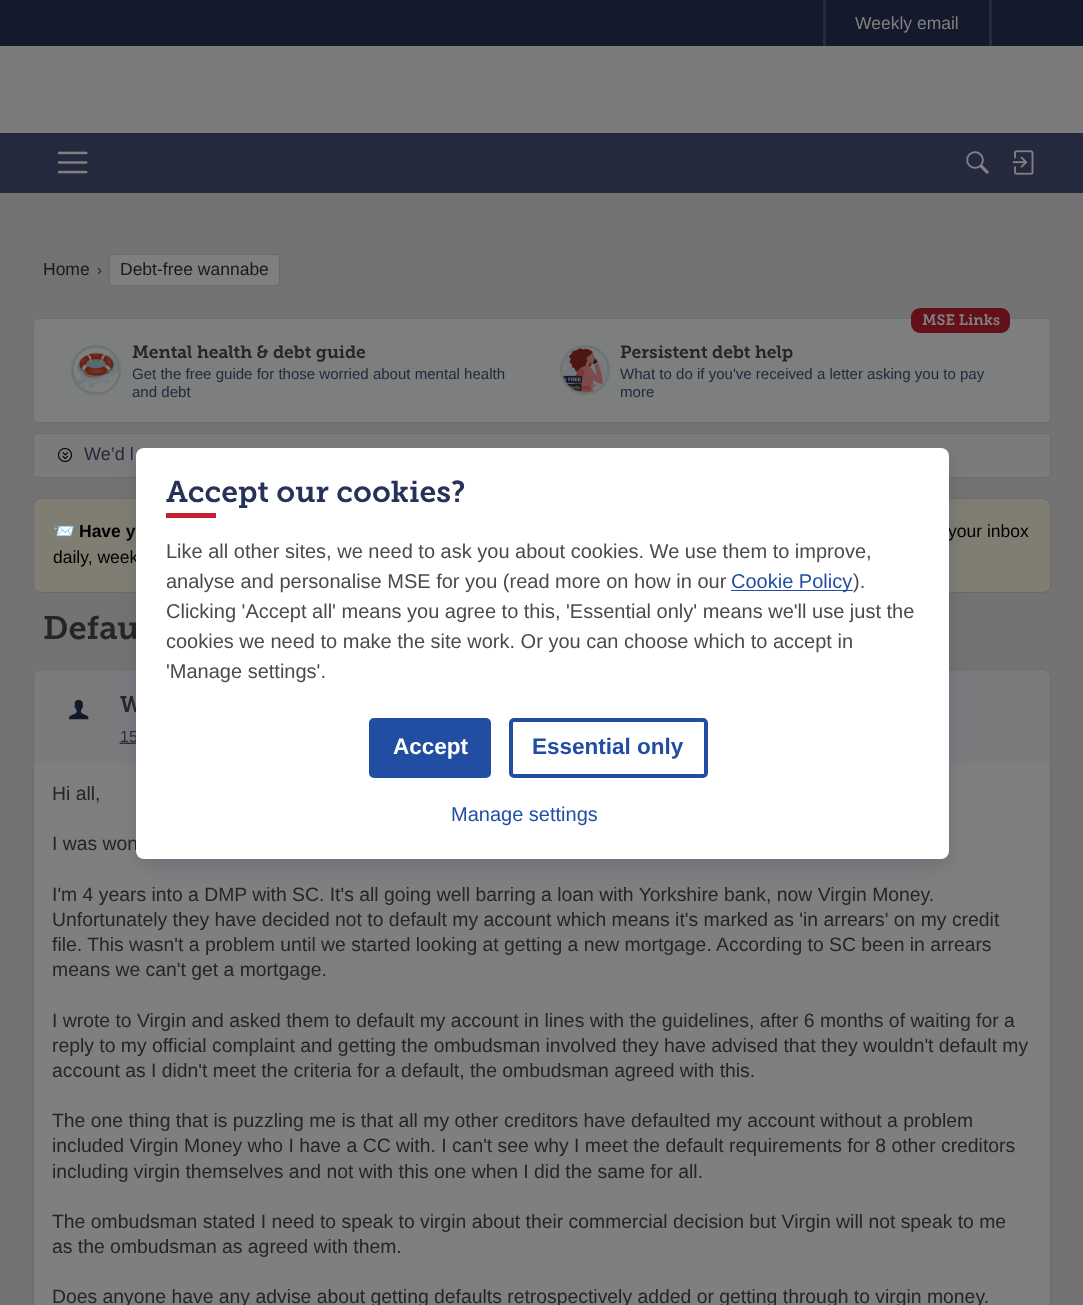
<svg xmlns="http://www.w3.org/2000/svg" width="1083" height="1305">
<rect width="100%" height="100%" fill="#737373"/>
<rect width="1083" height="46" fill="#14192b"/>
<rect x="823" width="3" height="46" fill="#282b39"/>
<text x="855" y="29" style="font-family:Liberation Sans;font-size:17.5px;fill:#808080">Weekly email</text>
<rect x="989" width="3" height="46" fill="#282b39"/>
<rect y="46" width="1083" height="87" fill="#7b7b7b"/>
<rect y="133" width="1083" height="60" fill="#24293d"/>
<image x="58" y="151" width="30" height="23" href="media/1.png"/>
<image x="966" y="151" width="23" height="23" href="media/2.png"/>
<image x="1012" y="150" width="22" height="25" href="media/3.png"/>
<text x="43" y="275" style="font-family:Liberation Sans;font-size:17.5px;fill:#1a1a1a">Home</text>
<text x="97" y="275" style="font-family:Liberation Sans;font-size:15px;fill:#252525">›</text>
<rect x="109.5" y="254.5" width="170" height="31" rx="3.5" fill="#7f7f7f" stroke="#6a6a6a"/>
<text x="120" y="275" style="font-family:Liberation Sans;font-size:17.5px;fill:#1a1a1a">Debt-free wannabe</text>
<rect x="33.5" y="318.5" width="1017" height="104" rx="4.5" fill="#7d7e7e" stroke="#6d6d6d"/>
<rect x="911" y="308" width="99" height="25" rx="9" fill="#63101b"/>
<text x="922" y="325" style="font-family:'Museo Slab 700';font-size:15px;font-weight:600;fill:#808080">MSE Links</text>
<circle cx="96" cy="370" r="23.5" fill="none" stroke="#6e7373" stroke-width="3"/>
<image x="74" y="347" width="45" height="46" href="media/4.png"/>
<text x="132" y="358" style="font-family:'Museo Slab 700';font-size:17.5px;font-weight:600;fill:#252525">Mental health &amp; debt guide</text>
<text x="132" y="379" style="font-family:Liberation Sans;font-size:15.05px;fill:#24293d">Get the free guide for those worried about mental health</text>
<text x="132" y="397" style="font-family:Liberation Sans;font-size:15.05px;fill:#24293d">and debt</text>
<circle cx="585" cy="370" r="23.5" fill="none" stroke="#6e7373" stroke-width="3"/>
<image x="562" y="347" width="46" height="46" href="media/5.png"/>
<text x="620" y="358" style="font-family:'Museo Slab 700';font-size:17.5px;font-weight:600;fill:#252525">Persistent debt help</text>
<text x="620" y="379" style="font-family:Liberation Sans;font-size:15.05px;fill:#24293d">What to do if you've received a letter asking you to pay</text>
<text x="620" y="397" style="font-family:Liberation Sans;font-size:15.05px;fill:#24293d">more</text>
<rect x="33.5" y="433.5" width="1017" height="44" rx="4.5" fill="#7b7b7c" stroke="#6d6d6d"/>
<image x="58" y="448" width="14" height="14" href="media/6.png"/>
<text x="84" y="460" style="font-family:Liberation Sans;font-size:18px;fill:#24293d">We’d l</text>
<rect x="33.5" y="498.5" width="1017" height="94" rx="7.5" fill="#807d73" stroke="#696a6e"/>
<text x="53" y="537" style="font-family:Noto Color Emoji;font-size:17.5px;fill:#000">📨</text>
<text x="79" y="537" style="font-family:Liberation Sans;font-size:17.5px;font-weight:bold;fill:#000">Have y</text>
<text x="948" y="537" style="font-family:Liberation Sans;font-size:17.5px;fill:#000">your inbox</text>
<text x="53" y="563" style="font-family:Liberation Sans;font-size:17.5px;fill:#000">daily, week</text>
<text x="43" y="639" style="font-family:'Museo Slab 700';font-size:32.5px;font-weight:600;fill:#252525">Defau</text>
<rect x="33.5" y="669.5" width="1017" height="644" rx="7.5" fill="#7f7f7f" stroke="#6a6b6e"/>
<path d="M42 670h1000c4.5 0 8 3.5 8 8v85h-1016v-85c0-4.5 3.5-8 8-8z" fill="#7a7b7d"/>
<image x="53" y="685" width="51" height="52" href="media/7.png"/>
<text x="120" y="712" style="font-family:'Museo Slab 700';font-size:22.5px;font-weight:600;fill:#252525">W</text>
<image x="119" y="742" width="17" height="2" href="media/8.png"/>
<text x="120" y="742" style="font-family:Liberation Sans;font-size:16px;fill:#303030">15</text>
<rect x="120" y="743" width="16" height="1" fill="#303030"/>
<text x="52" y="800" style="font-family:Liberation Sans;font-size:19.38px;fill:#252525">Hi all,</text>
<text x="52" y="850" style="font-family:Liberation Sans;font-size:19.38px;fill:#252525">I was won</text>
<text x="52" y="901" style="font-family:Liberation Sans;font-size:19.38px;fill:#252525">I'm 4 years into a DMP with SC. It's all going well barring a loan with Yorkshire bank, now Virgin Money.</text>
<text x="52" y="926" style="font-family:Liberation Sans;font-size:19.38px;fill:#252525">Unfortunately they have decided not to default my account which means it's marked as 'in arrears' on my credit</text>
<text x="52" y="951" style="font-family:Liberation Sans;font-size:19.38px;fill:#252525">file. This wasn't a problem until we started looking at getting a new mortgage. According to SC been in arrears</text>
<text x="52" y="976" style="font-family:Liberation Sans;font-size:19.38px;fill:#252525">means we can't get a mortgage.</text>
<text x="52" y="1027" style="font-family:Liberation Sans;font-size:19.38px;fill:#252525">I wrote to Virgin and asked them to default my account in lines with the guidelines, after 6 months of waiting for a</text>
<text x="52" y="1052" style="font-family:Liberation Sans;font-size:19.38px;fill:#252525">reply to my official complaint and getting the ombudsman involved they have advised that they wouldn't default my</text>
<text x="52" y="1077" style="font-family:Liberation Sans;font-size:19.38px;fill:#252525">account as I didn't meet the criteria for a default, the ombudsman agreed with this.</text>
<text x="52" y="1127" style="font-family:Liberation Sans;font-size:19.38px;fill:#252525">The one thing that is puzzling me is that all my other creditors have defaulted my account without a problem</text>
<text x="52" y="1152" style="font-family:Liberation Sans;font-size:19.38px;fill:#252525">included Virgin Money who I have a CC with. I can't see why I meet the default requirements for 8 other creditors</text>
<text x="52" y="1178" style="font-family:Liberation Sans;font-size:19.38px;fill:#252525">including virgin themselves and not with this one when I did the same for all.</text>
<text x="52" y="1228" style="font-family:Liberation Sans;font-size:19.38px;fill:#252525">The ombudsman stated I need to speak to virgin about their commercial decision but Virgin will not speak to me</text>
<text x="52" y="1253" style="font-family:Liberation Sans;font-size:19.38px;fill:#252525">as the ombudsman as agreed with them.</text>
<text x="52" y="1303" style="font-family:Liberation Sans;font-size:19.38px;fill:#252525">Does anyone have any advise about getting defaults retrospectively added or getting through to virgin money.</text>
<rect x="136" y="455" width="813" height="411" rx="8" fill="#21395c33" filter="blur(9px)"/>
<rect x="136" y="448" width="813" height="411" rx="8" fill="#fff"/>
<text x="166" y="502" style="font-family:Museo Slab;font-size:30px;fill:#273257">Accept our cookies?</text>
<rect x="166" y="513" width="50" height="5" fill="#c62035"/>
<text x="166" y="558" style="font-family:Liberation Sans;font-size:20px;fill:#4a4a4a">Like all other sites, we need to ask you about cookies. We use them to improve,</text>
<text x="166" y="588" style="font-family:Liberation Sans;font-size:20px;fill:#4a4a4a">analyse and personalise MSE for you (read more on how in our</text>
<rect x="731" y="590" width="122" height="1" fill="#214ea3"/>
<text x="731" y="588" style="font-family:Liberation Sans;font-size:20px;fill:#214ea3">Cookie Policy</text>
<text x="853" y="588" style="font-family:Liberation Sans;font-size:20px;fill:#4a4a4a">).</text>
<text x="166" y="618" style="font-family:Liberation Sans;font-size:20px;fill:#4a4a4a">Clicking 'Accept all' means you agree to this, 'Essential only' means we'll use just the</text>
<text x="166" y="648" style="font-family:Liberation Sans;font-size:20px;fill:#4a4a4a">cookies we need to make the site work. Or you can choose which to accept in</text>
<text x="166" y="678" style="font-family:Liberation Sans;font-size:20px;fill:#4a4a4a">'Manage settings'.</text>
<rect x="371" y="720" width="118" height="56" rx="3" fill="#214ea3" stroke="#214ea3" stroke-width="4"/>
<text x="393" y="754" style="font-family:Liberation Sans;font-size:22.5px;font-weight:bold;fill:#fff">Accept</text>
<rect x="511" y="720" width="195" height="56" rx="3" fill="none" stroke="#214ea3" stroke-width="4"/>
<text x="532" y="754" style="font-family:Liberation Sans;font-size:22.5px;font-weight:bold;fill:#214ea3">Essential only</text>
<text x="451" y="821" style="font-family:Liberation Sans;font-size:20px;fill:#214ea3">Manage settings</text>
</svg>
